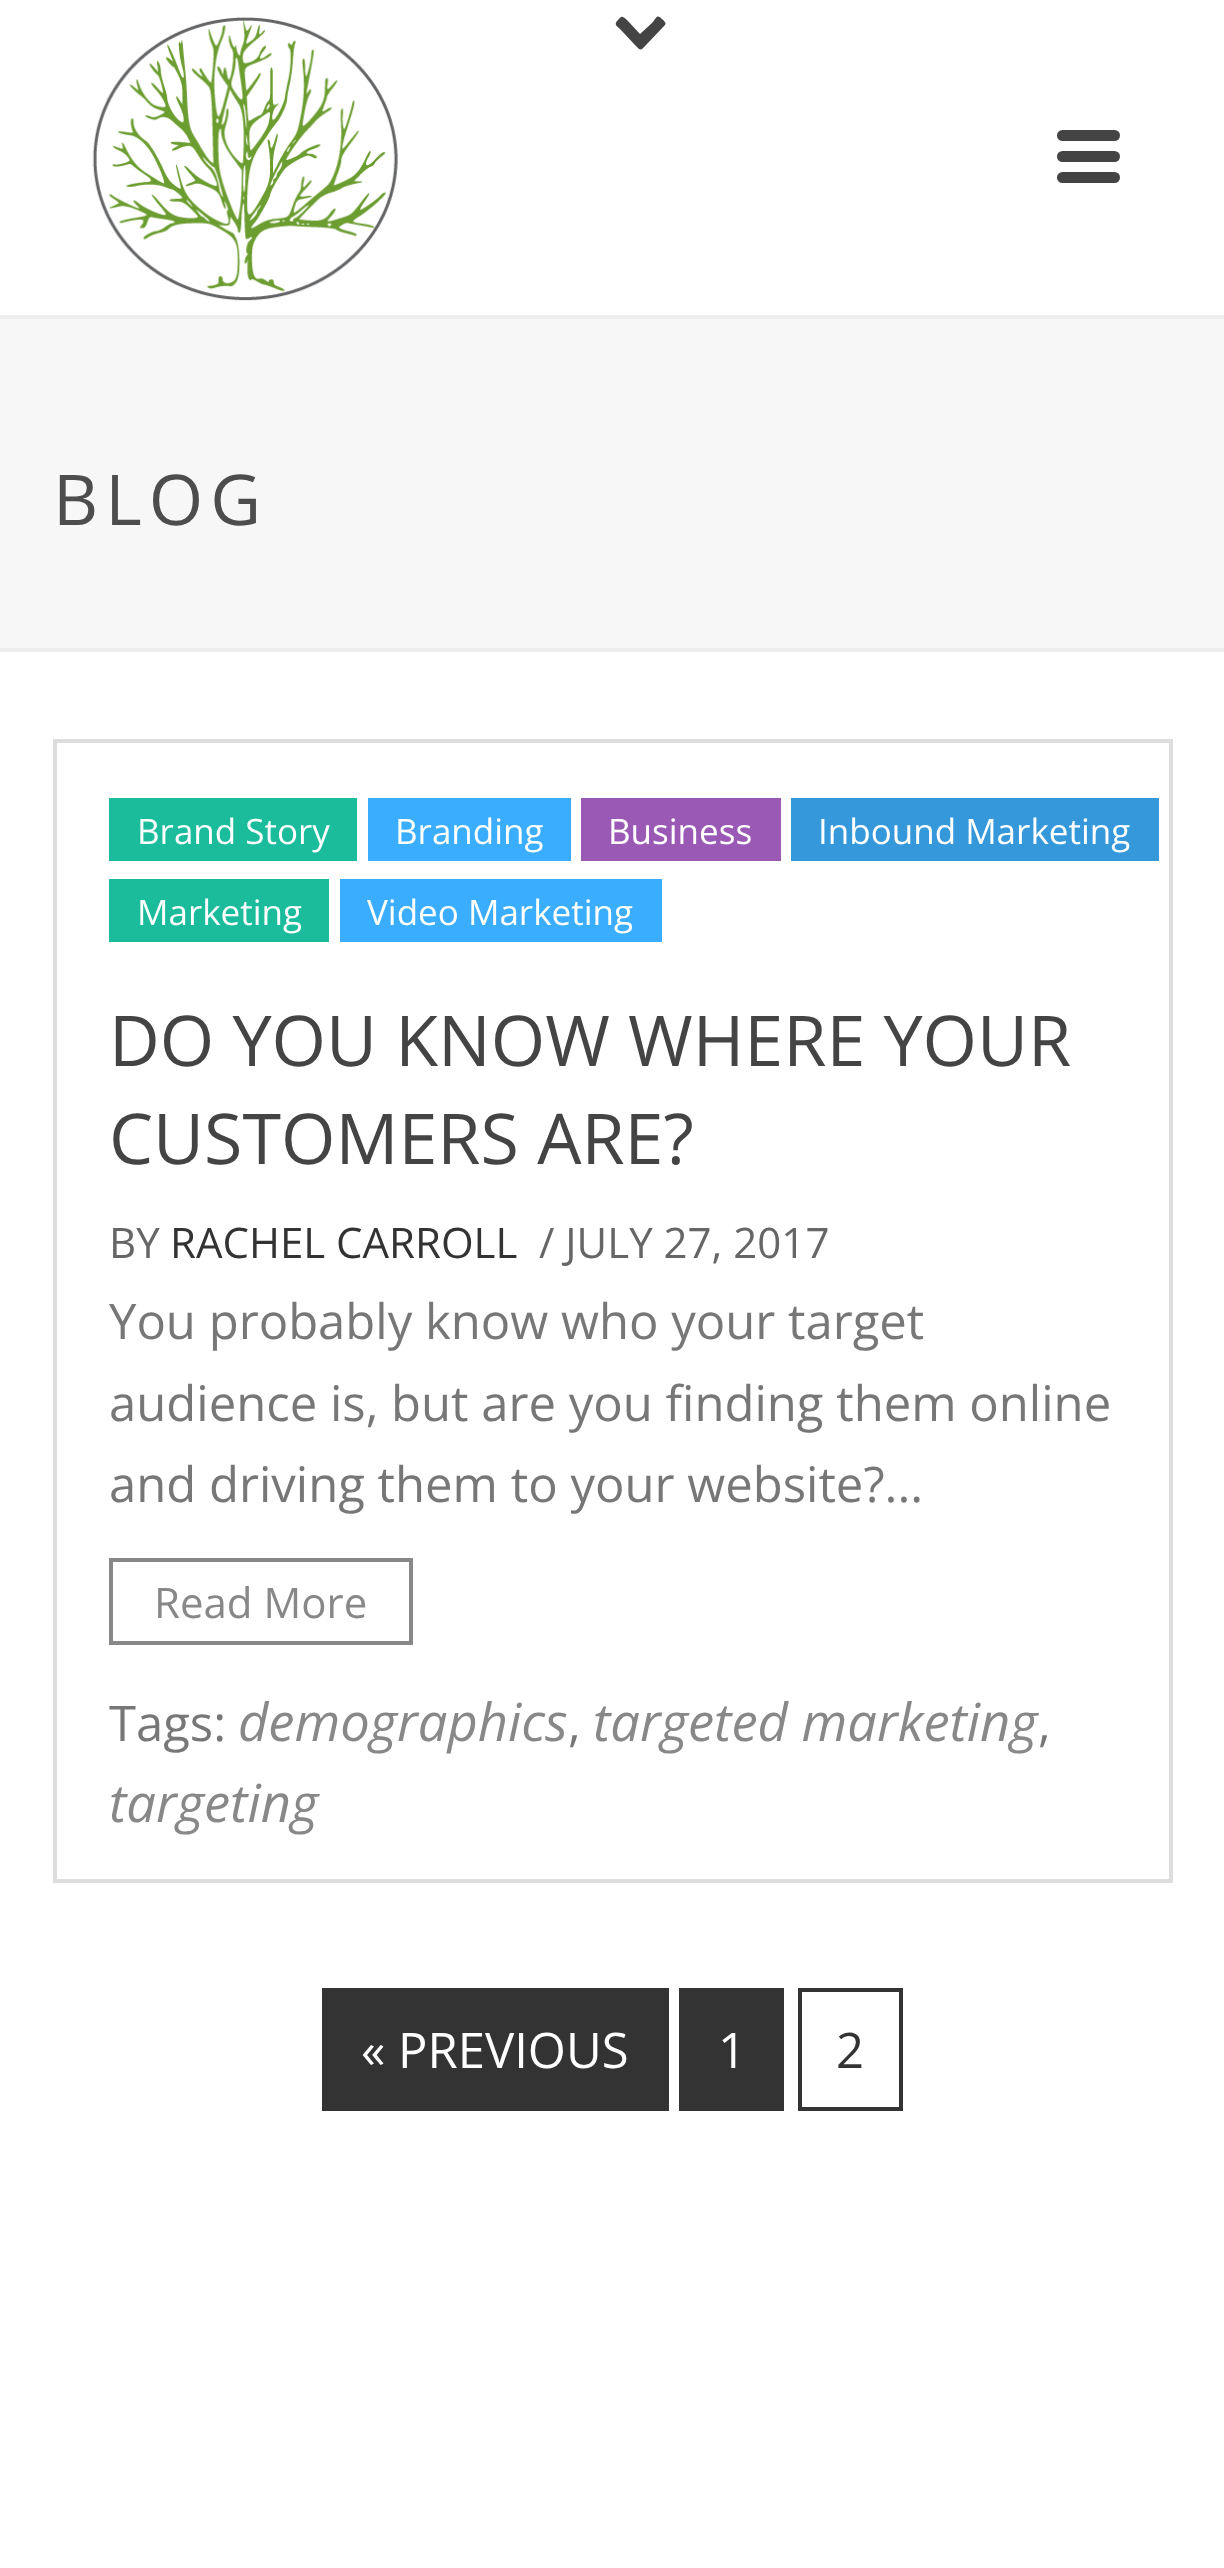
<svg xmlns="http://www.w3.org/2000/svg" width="1224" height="2568">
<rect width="100%" height="100%" fill="#fff"/>
<rect y="319" width="1224" height="329" fill="#f7f7f7"/>
<rect y="648" width="1224" height="4" fill="#ededed"/>
<rect y="315" width="1224" height="4" fill="#ededed"/>
<path d="M665 25l-19 20c-6 6-5 6-11 0l-15-16c-3-3-6-4-3-8c5-5 4-6 10-1l13 14l12-11c5-6 5-9 10-4c1 1 5 4 3 6z" fill="#444"/>
<image x="92" y="17" width="306" height="284" href="media/1.png"/>
<rect x="1057" y="130" width="63" height="11" rx="5.5" fill="#444"/>
<rect x="1057" y="151" width="63" height="11" rx="5.5" fill="#444"/>
<rect x="1057" y="172" width="63" height="11" rx="5.5" fill="#444"/>
<text x="53" y="525" style="font-family:Open Sans;font-size:70px;letter-spacing:7px;fill:#4d4d4d">BLOG</text>
<rect x="55" y="741" width="1116" height="1140" fill="none" stroke="#ddd" stroke-width="4"/>
<rect x="109" y="798" width="248" height="63" fill="#1abc9c"/>
<text x="137" y="844" style="font-family:Open Sans;font-size:35px;fill:#fff">Brand Story</text>
<rect x="368" y="798" width="203" height="63" fill="#3aadff"/>
<text x="395" y="844" style="font-family:Open Sans;font-size:35px;fill:#fff">Branding</text>
<rect x="581" y="798" width="200" height="63" fill="#9b59b6"/>
<text x="608" y="844" style="font-family:Open Sans;font-size:35px;fill:#fff">Business</text>
<rect x="791" y="798" width="368" height="63" fill="#3498db"/>
<text x="818" y="844" style="font-family:Open Sans;font-size:35px;fill:#fff">Inbound Marketing</text>
<rect x="109" y="879" width="220" height="63" fill="#1abc9c"/>
<text x="137" y="925" style="font-family:Open Sans;font-size:35px;fill:#fff">Marketing</text>
<rect x="340" y="879" width="322" height="63" fill="#3aadff"/>
<text x="367" y="925" style="font-family:Open Sans;font-size:35px;fill:#fff">Video Marketing</text>
<text x="109" y="1066" style="font-family:Open Sans;font-size:70px;fill:#444">DO YOU KNOW WHERE YOUR</text>
<text x="109" y="1164" style="font-family:Open Sans;font-size:70px;fill:#444">CUSTOMERS ARE?</text>
<text x="109" y="1258" style="font-family:Open Sans;font-size:42px;fill:#666">BY</text>
<text x="170" y="1258" style="font-family:Open Sans;font-size:42px;fill:#333">RACHEL CARROLL</text>
<text x="539" y="1258" style="font-family:Open Sans;font-size:42px;fill:#666">/ JULY 27, 2017</text>
<text x="109" y="1339" style="font-family:Open Sans;font-size:49px;fill:#777">You probably know who your target</text>
<text x="109" y="1421" style="font-family:Open Sans;font-size:49px;fill:#777">audience is, but are you finding them online</text>
<text x="109" y="1502" style="font-family:Open Sans;font-size:49px;fill:#777">and driving them to your website?...</text>
<rect x="111" y="1560" width="300" height="83" fill="none" stroke="#888" stroke-width="4"/>
<text x="154" y="1618" style="font-family:Open Sans;font-size:42px;fill:#888">Read More</text>
<text x="109" y="1741" style="font-family:Open Sans;font-size:49px;fill:#777">Tags:</text>
<text x="238" y="1741" style="font-family:Open Sans;font-size:52.5px;font-style:italic;fill:#888">demographics</text>
<text x="568" y="1741" style="font-family:Open Sans;font-size:49px;fill:#777">,</text>
<text x="593" y="1741" style="font-family:Open Sans;font-size:52.5px;font-style:italic;fill:#888">targeted marketing</text>
<text x="1038" y="1741" style="font-family:Open Sans;font-size:49px;fill:#777">,</text>
<text x="109" y="1822" style="font-family:Open Sans;font-size:52.5px;font-style:italic;fill:#888">targeting</text>
<rect x="322" y="1988" width="347" height="123" fill="#333"/>
<text x="361" y="2068" style="font-family:Open Sans;font-size:49px;fill:#fff">« PREVIOUS</text>
<rect x="679" y="1988" width="105" height="123" fill="#333"/>
<text x="718" y="2068" style="font-family:Open Sans;font-size:49px;fill:#fff">1</text>
<rect x="800" y="1990" width="101" height="119" fill="none" stroke="#333" stroke-width="4"/>
<text x="836" y="2068" style="font-family:Open Sans;font-size:49px;fill:#333">2</text>
</svg>
